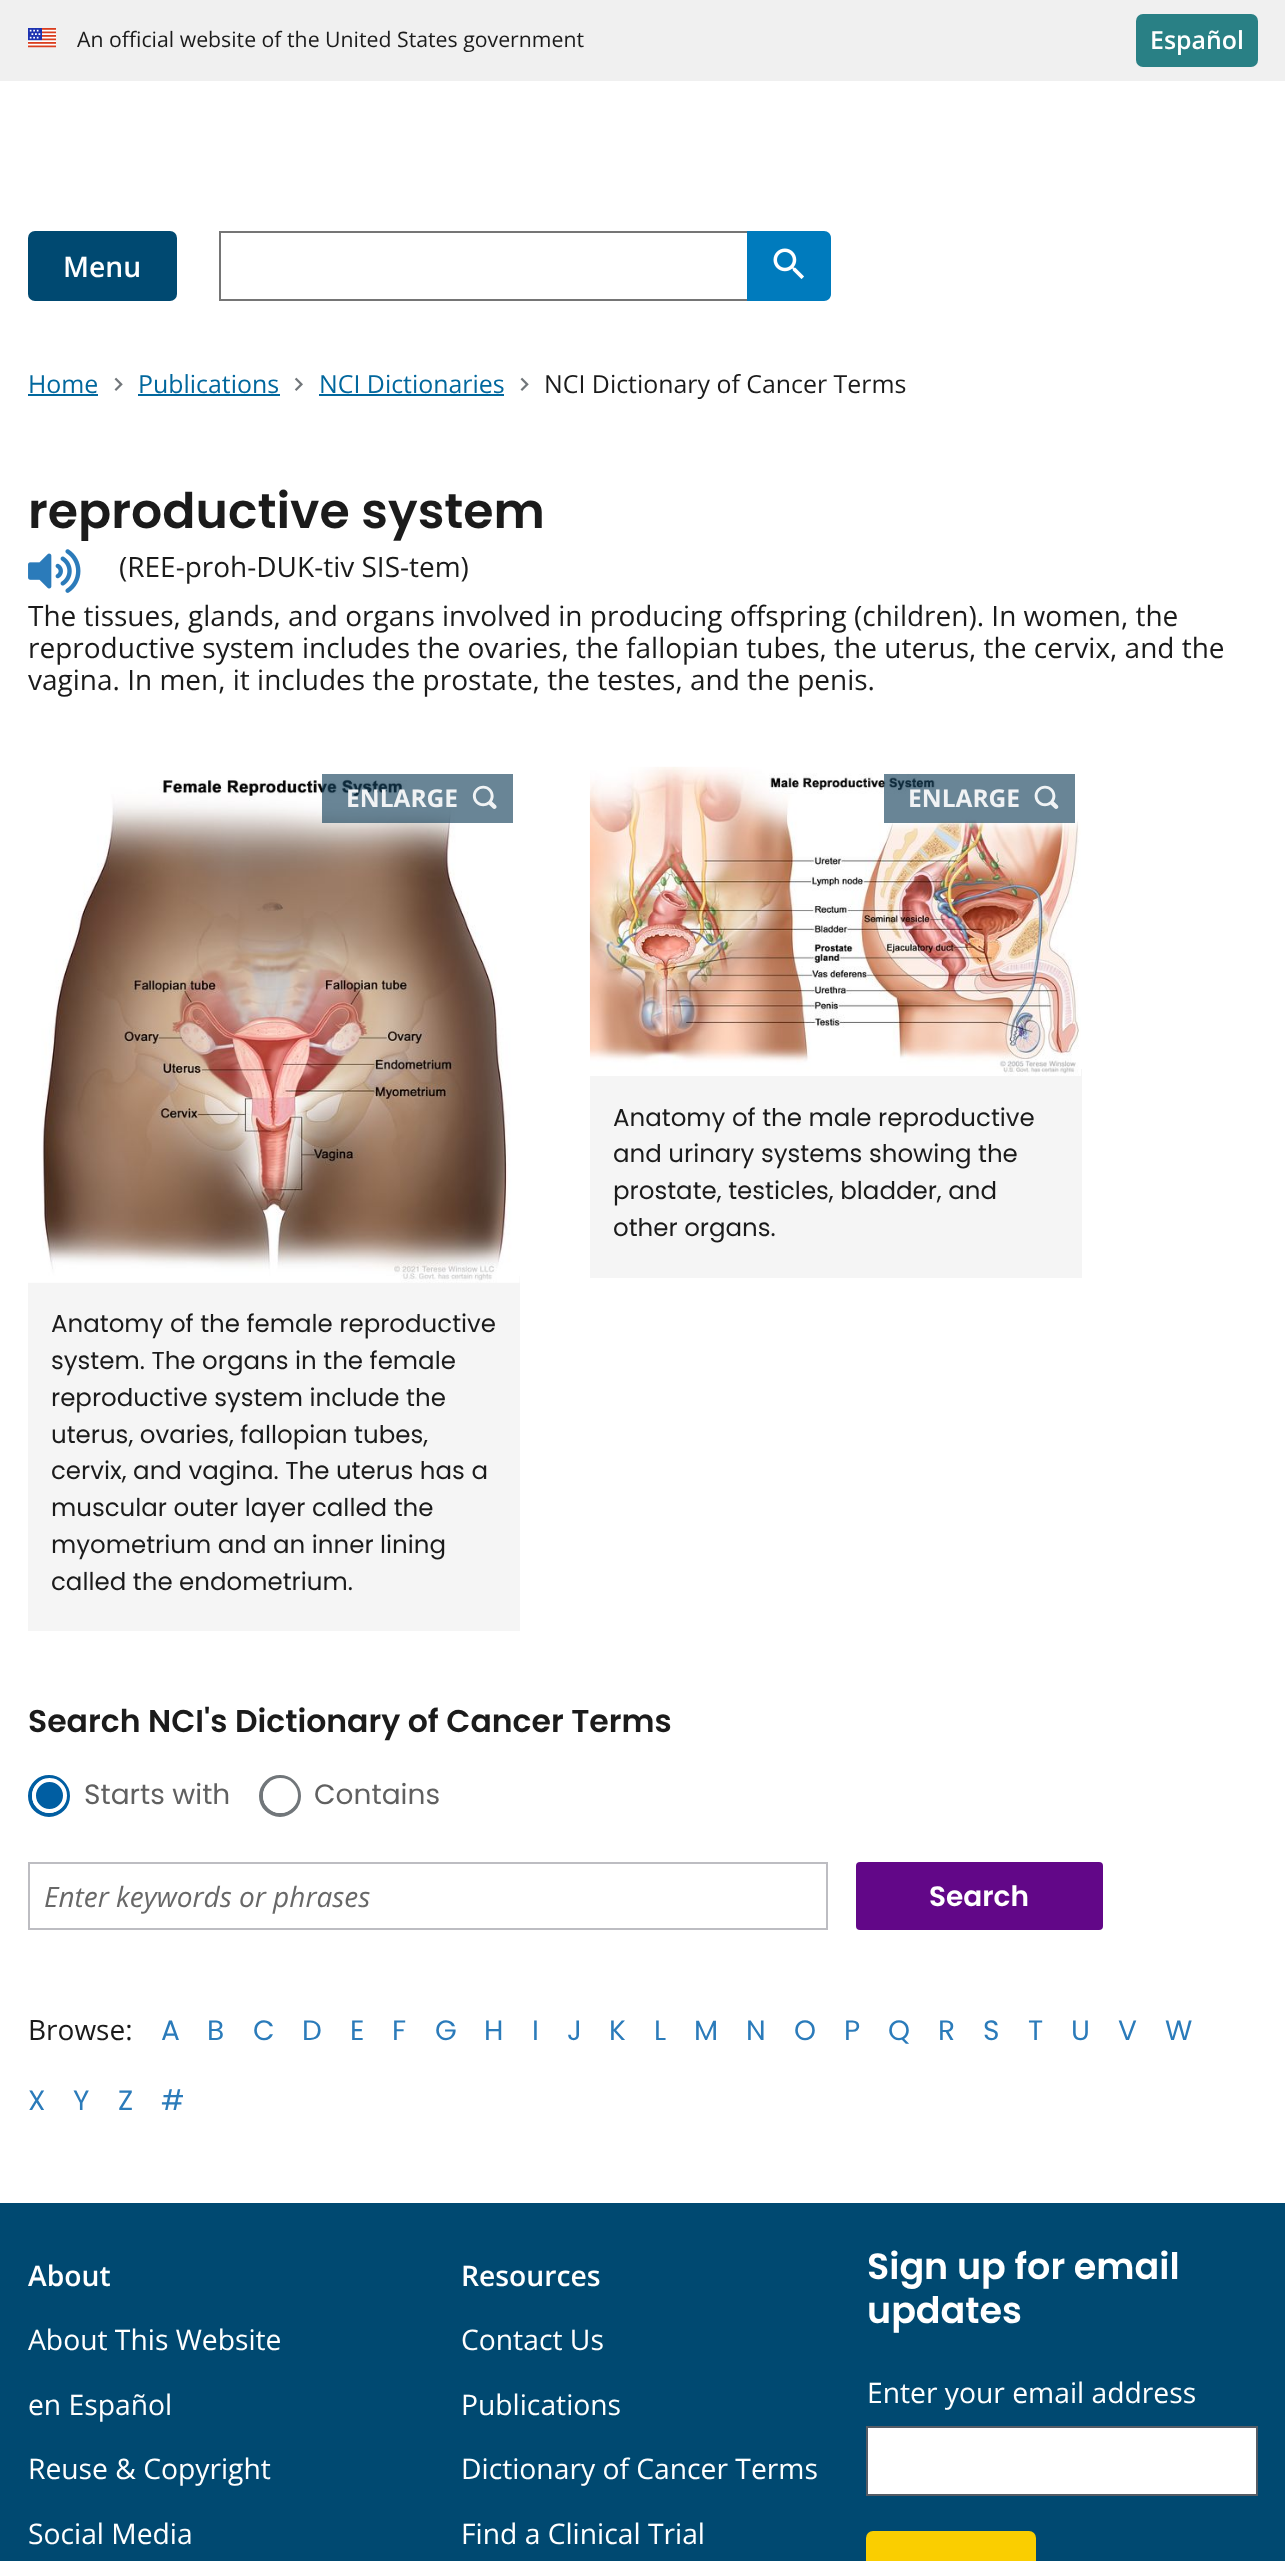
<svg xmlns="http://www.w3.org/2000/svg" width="1285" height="2561">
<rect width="100%" height="100%" fill="#fff"/>
<rect width="1285" height="81" fill="#f0f0f0"/>
<image x="28" y="28" width="28" height="20" href="media/1.png"/>
<text x="77" y="47" style="font-family:Open Sans;font-size:21.25px;fill:#1b1b1b">An official website of the United States government</text>
<rect x="1136" y="14" width="122" height="53" rx="7" fill="#298085"/>
<text x="1150" y="49" style="font-family:Open Sans;font-size:24.9px;font-weight:600;fill:#fff">Español</text>
<rect x="28" y="231" width="149" height="70" rx="7" fill="#004971"/>
<text x="63" y="277" style="font-family:Open Sans;font-size:28.25px;font-weight:600;fill:#fff">Menu</text>
<rect x="219" y="231" width="528" height="2" fill="#757575"/>
<rect x="219" y="299" width="528" height="2" fill="#757575"/>
<rect x="219" y="231" width="2" height="70" fill="#757575"/>
<path d="M747 231h77c4 0 7 3 7 7v56c0 4-3 7-7 7h-77z" fill="#007bbd"/>
<image x="773" y="248" width="31" height="31" href="media/2.png"/>
<text x="28" y="393" style="font-family:Open Sans;font-size:24.9px;fill:#01679d">Home</text>
<rect x="28" y="394" width="70" height="2" fill="#01679d"/>
<image x="114" y="377" width="9" height="14" href="media/3.png"/>
<text x="138" y="393" style="font-family:Open Sans;font-size:24.9px;fill:#01679d">Publications</text>
<rect x="138" y="394" width="142" height="2" fill="#01679d"/>
<image x="294" y="377" width="9" height="14" href="media/4.png"/>
<text x="319" y="393" style="font-family:Open Sans;font-size:24.9px;fill:#01679d">NCI Dictionaries</text>
<rect x="319" y="394" width="185" height="2" fill="#01679d"/>
<image x="520" y="377" width="9" height="14" href="media/3.png"/>
<text x="544" y="393" style="font-family:Open Sans;font-size:24.9px;fill:#1b1b1b">NCI Dictionary of Cancer Terms</text>
<text x="28" y="528" style="font-family:Poppins;font-size:49px;font-weight:600;fill:#1b1b1b">reproductive system</text>
<image x="28" y="549" width="53" height="44" href="media/5.png"/>
<text x="119" y="577" style="font-family:Open Sans;font-size:28px;fill:#1b1b1b">(REE-proh-DUK-tiv SIS-tem)</text>
<text x="28" y="626" style="font-family:Open Sans;font-size:28px;fill:#1b1b1b">The tissues, glands, and organs involved in producing offspring (children). In women, the</text>
<text x="28" y="658" style="font-family:Open Sans;font-size:28px;fill:#1b1b1b">reproductive system includes the ovaries, the fallopian tubes, the uterus, the cervix, and the</text>
<text x="28" y="690" style="font-family:Open Sans;font-size:28px;fill:#1b1b1b">vagina. In men, it includes the prostate, the testes, and the penis.</text>
<rect x="28" y="1276" width="492" height="355" fill="#f5f5f5"/>
<image x="28" y="778" width="492" height="505" href="media/6.png"/>
<rect x="322" y="774" width="191" height="49" fill="#123e58a1"/>
<text x="346" y="807" style="font-family:Open Sans;font-size:24.5px;font-weight:bold;fill:#f0f2f4">ENLARGE</text>
<image x="472" y="785" width="25" height="24" href="media/7.png"/>
<text x="51" y="1332" style="font-family:Poppins;font-size:24.5px;fill:#1b1b1b">Anatomy of the female reproductive</text>
<text x="51" y="1369" style="font-family:Poppins;font-size:24.5px;fill:#1b1b1b">system. The organs in the female</text>
<text x="51" y="1406" style="font-family:Poppins;font-size:24.5px;fill:#1b1b1b">reproductive system include the</text>
<text x="51" y="1443" style="font-family:Poppins;font-size:24.5px;fill:#1b1b1b">uterus, ovaries, fallopian tubes,</text>
<text x="51" y="1479" style="font-family:Poppins;font-size:24.5px;fill:#1b1b1b">cervix, and vagina. The uterus has a</text>
<text x="51" y="1516" style="font-family:Poppins;font-size:24.5px;fill:#1b1b1b">muscular outer layer called the</text>
<text x="51" y="1553" style="font-family:Poppins;font-size:24.5px;fill:#1b1b1b">myometrium and an inner lining</text>
<text x="51" y="1590" style="font-family:Poppins;font-size:24.5px;fill:#1b1b1b">called the endometrium.</text>
<rect x="590" y="1069" width="492" height="209" fill="#f5f5f5"/>
<image x="589" y="766" width="492" height="310" href="media/8.png"/>
<rect x="884" y="774" width="191" height="49" fill="#123e58a1"/>
<text x="908" y="807" style="font-family:Open Sans;font-size:24.5px;font-weight:bold;fill:#f0f2f4">ENLARGE</text>
<image x="1034" y="785" width="25" height="24" href="media/9.png"/>
<text x="613" y="1126" style="font-family:Poppins;font-size:24.5px;fill:#1b1b1b">Anatomy of the male reproductive</text>
<text x="613" y="1162" style="font-family:Poppins;font-size:24.5px;fill:#1b1b1b">and urinary systems showing the</text>
<text x="613" y="1199" style="font-family:Poppins;font-size:24.5px;fill:#1b1b1b">prostate, testicles, bladder, and</text>
<text x="613" y="1236" style="font-family:Poppins;font-size:24.5px;fill:#1b1b1b">other organs.</text>
<text x="28" y="1732" style="font-family:Poppins;font-size:31.5px;font-weight:600;fill:#1b1b1b">Search NCI's Dictionary of Cancer Terms</text>
<circle cx="49" cy="1796" r="19" fill="none" stroke="#005ea2" stroke-width="4"/>
<circle cx="49.5" cy="1795.5" r="15.5" fill="#005ea2" stroke="#fff" stroke-width="4"/>
<text x="84" y="1804" style="font-family:Poppins;font-size:28px;fill:#606060">Starts with</text>
<circle cx="280" cy="1796" r="19" fill="none" stroke="#71767a" stroke-width="4"/>
<circle cx="280.5" cy="1795.5" r="17.5" fill="#fff"/>
<text x="314" y="1804" style="font-family:Poppins;font-size:28px;fill:#606060">Contains</text>
<rect x="29" y="1863" width="798" height="66" fill="none" stroke="#bdbdc2" stroke-width="2"/>
<text x="44" y="1907" style="font-family:Open Sans;font-size:28px;font-style:italic;fill:#686868">Enter keywords or phrases</text>
<rect x="856" y="1862" width="247" height="68" rx="4" fill="#620788"/>
<text x="929" y="1906" style="font-family:Poppins;font-size:28px;font-weight:600;fill:#fff">Search</text>
<text x="161" y="2040" style="font-family:Poppins;font-size:28px;fill:#2b7bba">A</text>
<text x="207" y="2040" style="font-family:Poppins;font-size:28px;fill:#2b7bba">B</text>
<text x="253" y="2040" style="font-family:Poppins;font-size:28px;fill:#2b7bba">C</text>
<text x="302" y="2040" style="font-family:Poppins;font-size:28px;fill:#2b7bba">D</text>
<text x="350" y="2040" style="font-family:Poppins;font-size:28px;fill:#2b7bba">E</text>
<text x="392" y="2040" style="font-family:Poppins;font-size:28px;fill:#2b7bba">F</text>
<text x="435" y="2040" style="font-family:Poppins;font-size:28px;fill:#2b7bba">G</text>
<text x="484" y="2040" style="font-family:Poppins;font-size:28px;fill:#2b7bba">H</text>
<text x="532" y="2040" style="font-family:Poppins;font-size:28px;fill:#2b7bba">I</text>
<text x="567" y="2040" style="font-family:Poppins;font-size:28px;fill:#2b7bba">J</text>
<text x="609" y="2040" style="font-family:Poppins;font-size:28px;fill:#2b7bba">K</text>
<text x="654" y="2040" style="font-family:Poppins;font-size:28px;fill:#2b7bba">L</text>
<text x="694" y="2040" style="font-family:Poppins;font-size:28px;fill:#2b7bba">M</text>
<text x="746" y="2040" style="font-family:Poppins;font-size:28px;fill:#2b7bba">N</text>
<text x="794" y="2040" style="font-family:Poppins;font-size:28px;fill:#2b7bba">O</text>
<text x="844" y="2040" style="font-family:Poppins;font-size:28px;fill:#2b7bba">P</text>
<text x="888" y="2040" style="font-family:Poppins;font-size:28px;fill:#2b7bba">Q</text>
<text x="938" y="2040" style="font-family:Poppins;font-size:28px;fill:#2b7bba">R</text>
<text x="983" y="2040" style="font-family:Poppins;font-size:28px;fill:#2b7bba">S</text>
<text x="1028" y="2040" style="font-family:Poppins;font-size:28px;fill:#2b7bba">T</text>
<text x="1071" y="2040" style="font-family:Poppins;font-size:28px;fill:#2b7bba">U</text>
<text x="1118" y="2040" style="font-family:Poppins;font-size:28px;fill:#2b7bba">V</text>
<text x="1165" y="2040" style="font-family:Poppins;font-size:28px;fill:#2b7bba">W</text>
<text x="28" y="2110" style="font-family:Poppins;font-size:28px;fill:#2b7bba">X</text>
<text x="73" y="2110" style="font-family:Poppins;font-size:28px;fill:#2b7bba">Y</text>
<text x="118" y="2110" style="font-family:Poppins;font-size:28px;fill:#2b7bba">Z</text>
<text x="161" y="2110" style="font-family:Poppins;font-size:28px;fill:#2b7bba">#</text>
<text x="28" y="2040" style="font-family:Open Sans;font-size:28px;fill:#1b1b1b">Browse:</text>
<rect y="2203" width="1285" height="358" fill="#004971"/>
<text x="28" y="2286" style="font-family:Open Sans;font-size:28.25px;font-weight:600;fill:#fff">About</text>
<text x="28" y="2350" style="font-family:Open Sans;font-size:28.25px;fill:#fff">About This Website</text>
<text x="28" y="2415" style="font-family:Open Sans;font-size:28.25px;fill:#fff">en Español</text>
<text x="28" y="2479" style="font-family:Open Sans;font-size:28.25px;fill:#fff">Reuse &amp; Copyright</text>
<text x="28" y="2544" style="font-family:Open Sans;font-size:28.25px;fill:#fff">Social Media</text>
<text x="461" y="2286" style="font-family:Open Sans;font-size:28.25px;font-weight:600;fill:#fff">Resources</text>
<text x="461" y="2350" style="font-family:Open Sans;font-size:28.25px;fill:#fff">Contact Us</text>
<text x="461" y="2415" style="font-family:Open Sans;font-size:28.25px;fill:#fff">Publications</text>
<text x="461" y="2479" style="font-family:Open Sans;font-size:28.25px;fill:#fff">Dictionary of Cancer Terms</text>
<text x="461" y="2544" style="font-family:Open Sans;font-size:28.25px;fill:#fff">Find a Clinical Trial</text>
<text x="867" y="2279" style="font-family:Poppins;font-size:36.5px;font-weight:600;fill:#fff">Sign up for email</text>
<text x="867" y="2323" style="font-family:Poppins;font-size:36.5px;font-weight:600;fill:#fff">updates</text>
<text x="867" y="2403" style="font-family:Open Sans;font-size:28.25px;fill:#fff">Enter your email address</text>
<rect x="867" y="2427" width="390" height="68" fill="#fff" stroke="#565c65" stroke-width="2"/>
<rect x="866" y="2531" width="170" height="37" rx="7" fill="#face00"/>
</svg>
